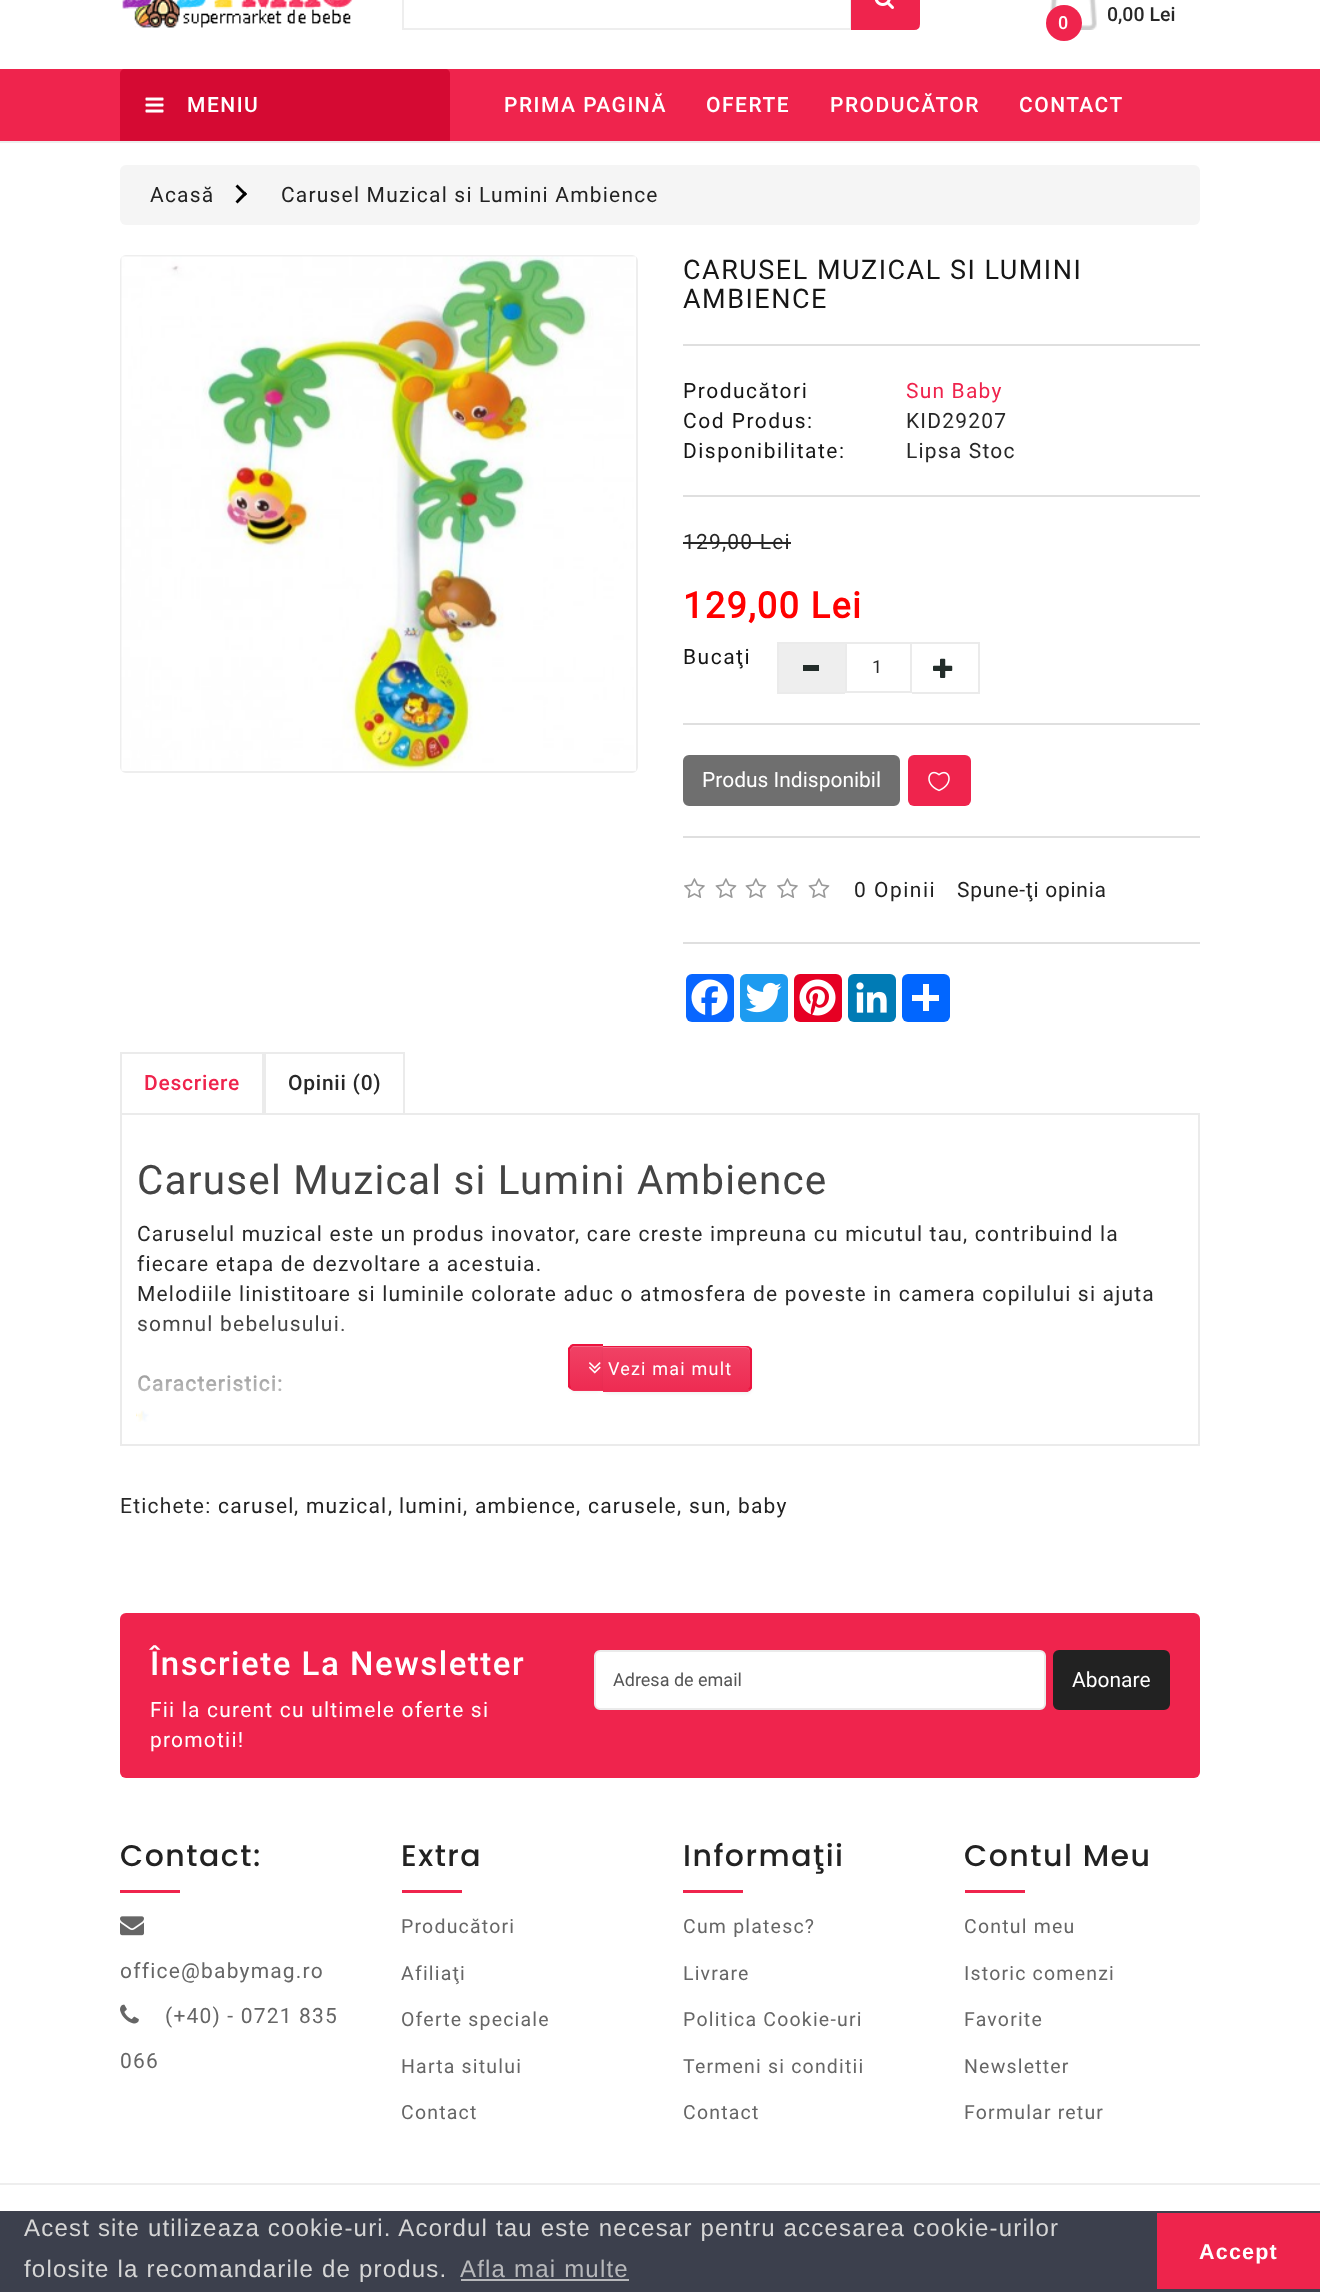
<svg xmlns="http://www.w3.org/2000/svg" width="1320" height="2292">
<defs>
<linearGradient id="g1" gradientUnits="userSpaceOnUse" x1="660" y1="1308" x2="660" y2="1430"><stop offset="0" stop-color="#fff" stop-opacity="0"/><stop offset="1" stop-color="#fff"/></linearGradient>
<clipPath id="clip1"><path d="M575 1344h28v47h-28c-3.5 0-6-2.5-6-6v-35c0-3.5 2.5-6 6-6z"/></clipPath>
<linearGradient id="g2" gradientUnits="userSpaceOnUse" x1="587" y1="1346" x2="587" y2="1389"><stop offset="0" stop-color="#f04265"/><stop offset="1" stop-color="#ee2b52"/></linearGradient>
<clipPath id="clip2"><path d="M603 1346h143c3.5 0 6 2.5 6 6v34c0 3.5-2.5 6-6 6h-143z"/></clipPath>
<linearGradient id="g3" gradientUnits="userSpaceOnUse" x1="677" y1="1347" x2="677" y2="1391"><stop offset="0" stop-color="#f04265"/><stop offset="1" stop-color="#ee2b52"/></linearGradient>
</defs>
<rect width="100%" height="100%" fill="#fff"/>
<image x="122" y="0" width="231" height="28" href="media/1.png"/>
<rect x="403" y="-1" width="448" height="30" fill="none" stroke="#eee" stroke-width="2"/>
<path d="M852-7h62c3 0 5 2 5 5v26c0 3-2 5-5 5h-62z" fill="#ef244d" stroke="#ef244d" stroke-width="2"/>
<image x="874" y="0" width="20" height="9" href="media/2.png"/>
<image x="1050" y="0" width="47" height="30" href="media/3.png"/>
<circle cx="1064" cy="23" r="18" fill="#ef244d"/>
<text x="1058" y="29" style="font-family:Roboto;font-size:18px;font-weight:500;fill:#fff">0</text>
<text x="1107" y="21" style="font-family:Roboto;font-size:19.5px;font-weight:500;fill:#282828">0,00 Lei</text>
<rect y="69" width="1320" height="72" fill="#ef244d"/>
<rect y="141" width="1320" height="2" fill="#eee"/>
<path d="M125 69h320c3 0 5 2 5 5v67h-330v-67c0-3 2-5 5-5z" fill="#d50a33"/>
<image x="145" y="97" width="19" height="16" href="media/4.png"/>
<text x="187" y="112" style="font-family:Roboto;font-size:21px;font-weight:500;letter-spacing:1.5px;fill:#fff">MENIU</text>
<text x="504" y="112" style="font-family:Roboto;font-size:21px;font-weight:500;letter-spacing:1.5px;fill:#fff">PRIMA PAGINĂ</text>
<text x="706" y="112" style="font-family:Roboto;font-size:21px;font-weight:500;letter-spacing:1.5px;fill:#fff">OFERTE</text>
<text x="830" y="112" style="font-family:Roboto;font-size:21px;font-weight:500;letter-spacing:1.5px;fill:#fff">PRODUCĂTOR</text>
<text x="1019" y="112" style="font-family:Roboto;font-size:21px;font-weight:500;letter-spacing:1.5px;fill:#fff">CONTACT</text>
<rect x="120" y="165" width="1080" height="60" rx="6" fill="#f5f5f5"/>
<text x="150" y="202" style="font-family:Roboto;font-size:21px;letter-spacing:1.2px;fill:#222">Acasă</text>
<path d="M235.5 186.5l2-2l9.5 9.5l-2 2z" fill="#000"/>
<path d="M235.5 201.5l9.5-10l2 2.5l-9.5 9.5z" fill="#000"/>
<text x="281" y="202" style="font-family:Roboto;font-size:21px;letter-spacing:1.2px;fill:#222">Carusel Muzical si Lumini Ambience</text>
<rect x="121" y="256" width="516" height="516" rx="5" fill="none" stroke="#eee" stroke-width="2"/>
<image x="121" y="256" width="515" height="515" href="media/5.png"/>
<text x="683" y="279" style="font-family:Roboto;font-size:27px;letter-spacing:1.5px;fill:#161616">CARUSEL MUZICAL SI LUMINI</text>
<text x="683" y="308" style="font-family:Roboto;font-size:27px;letter-spacing:1.5px;fill:#161616">AMBIENCE</text>
<rect x="683" y="344" width="517" height="2" fill="#dfdfdf"/>
<text x="683" y="398" style="font-family:Roboto;font-size:21px;letter-spacing:1.5px;fill:#161616">Producători</text>
<text x="906" y="398" style="font-family:Roboto;font-size:21px;letter-spacing:1.2px;fill:#ef244d">Sun Baby</text>
<text x="683" y="428" style="font-family:Roboto;font-size:21px;letter-spacing:1.5px;fill:#161616">Cod Produs:</text>
<text x="906" y="428" style="font-family:Roboto;font-size:21px;letter-spacing:1.2px;fill:#282828">KID29207</text>
<text x="683" y="458" style="font-family:Roboto;font-size:21px;letter-spacing:1.5px;fill:#161616">Disponibilitate:</text>
<text x="906" y="458" style="font-family:Roboto;font-size:21px;letter-spacing:1.2px;fill:#282828">Lipsa Stoc</text>
<rect x="683" y="495" width="517" height="2" fill="#dfdfdf"/>
<text x="683" y="549" style="font-family:Roboto;font-size:21px;letter-spacing:1.2px;fill:#282828">129,00 Lei</text>
<rect x="683" y="542" width="108" height="2" fill="#282828"/>
<text x="683" y="618" style="font-family:Roboto;font-size:36px;font-weight:bold;letter-spacing:1.5px;fill:#f00">129,00 Lei</text>
<text x="683" y="664" style="font-family:Roboto;font-size:21px;letter-spacing:1.5px;fill:#161616">Bucaţi</text>
<rect x="779" y="644" width="66" height="48" fill="#eee"/>
<rect x="777" y="642" width="68" height="2" fill="#ebebeb"/>
<rect x="777" y="692" width="68" height="2" fill="#ebebeb"/>
<rect x="777" y="642" width="2" height="51" fill="#ebebeb"/>
<rect x="803" y="665" width="16" height="6" fill="#232d2a"/>
<rect x="846" y="643" width="65" height="49" fill="none" stroke="#ebebeb" stroke-width="2"/>
<text x="872" y="673" style="font-family:Roboto;font-size:18px;fill:#282828">1</text>
<rect x="912" y="642" width="68" height="2" fill="#ebebeb"/>
<rect x="978" y="642" width="2" height="51" fill="#ebebeb"/>
<rect x="912" y="692" width="68" height="2" fill="#ebebeb"/>
<image x="933" y="658" width="20" height="20" href="media/6.png"/>
<rect x="683" y="723" width="517" height="2" fill="#dfdfdf"/>
<rect x="684" y="756" width="215" height="49" rx="5" fill="#6f6f6f" stroke="#6f6f6f" stroke-width="2"/>
<text x="702" y="787" style="font-family:Roboto;font-size:21px;fill:#fff">Produs Indisponibil</text>
<rect x="908" y="755" width="63" height="51" rx="6" fill="#ef244d"/>
<image x="928" y="771" width="22" height="21" href="media/7.png"/>
<rect x="683" y="836" width="517" height="2" fill="#dfdfdf"/>
<image x="684" y="878" width="21" height="20" href="media/8.png"/>
<image x="715" y="878" width="22" height="20" href="media/9.png"/>
<image x="745" y="878" width="22" height="20" href="media/9.png"/>
<image x="777" y="878" width="21" height="20" href="media/8.png"/>
<image x="808" y="878" width="22" height="20" href="media/9.png"/>
<text x="854" y="897" style="font-family:Roboto;font-size:21px;letter-spacing:1.5px;fill:#222">0 Opinii</text>
<text x="957" y="897" style="font-family:Roboto;font-size:21px;letter-spacing:0.75px;fill:#222">Spune-ţi opinia</text>
<rect x="683" y="942" width="517" height="2" fill="#dfdfdf"/>
<rect x="686" y="974" width="48" height="48" rx="6" fill="#0866ff"/>
<image x="691" y="979" width="37" height="37" href="media/10.png"/>
<rect x="740" y="974" width="48" height="48" rx="6" fill="#1d9bf0"/>
<image x="745" y="982" width="37" height="31" href="media/11.png"/>
<rect x="794" y="974" width="48" height="48" rx="6" fill="#e60023"/>
<image x="799" y="979" width="37" height="37" href="media/12.png"/>
<rect x="848" y="974" width="48" height="48" rx="6" fill="#007bb5"/>
<image x="856" y="982" width="31" height="31" href="media/13.png"/>
<rect x="902" y="974" width="48" height="48" rx="6" fill="#0166ff"/>
<rect x="923" y="984" width="6" height="27" fill="#fff"/>
<rect x="912" y="995" width="27" height="6" fill="#fff"/>
<rect x="121" y="1114" width="1078" height="331" fill="none" stroke="#ebebeb" stroke-width="2"/>
<rect x="121" y="1053" width="142" height="61" fill="none" stroke="#ebebeb" stroke-width="2"/>
<text x="144" y="1090" style="font-family:Roboto;font-size:21px;font-weight:500;letter-spacing:0.75px;fill:#ef244d">Descriere</text>
<rect x="265" y="1053" width="139" height="61" fill="none" stroke="#ebebeb" stroke-width="2"/>
<text x="288" y="1090" style="font-family:Roboto;font-size:21px;font-weight:500;letter-spacing:0.75px;fill:#282828">Opinii (0)</text>
<text x="137" y="1194" style="font-family:Roboto;font-size:40.5px;letter-spacing:1.2px;fill:#444">Carusel Muzical si Lumini Ambience</text>
<text x="137" y="1241" style="font-family:Roboto;font-size:21px;letter-spacing:1.2px;fill:#282828">Caruselul muzical este un produs inovator, care creste impreuna cu micutul tau, contribuind la</text>
<text x="137" y="1271" style="font-family:Roboto;font-size:21px;letter-spacing:1.2px;fill:#282828">fiecare etapa de dezvoltare a acestuia.</text>
<text x="137" y="1301" style="font-family:Roboto;font-size:21px;letter-spacing:1.2px;fill:#282828">Melodiile linistitoare si luminile colorate aduc o atmosfera de poveste in camera copilului si ajuta</text>
<text x="137" y="1331" style="font-family:Roboto;font-size:21px;letter-spacing:1.2px;fill:#282828">somnul bebelusului.</text>
<text x="137" y="1391" style="font-family:Roboto;font-size:21px;font-weight:bold;letter-spacing:1.2px;fill:#282828">Caracteristici:</text>
<image x="136" y="1410" width="13" height="12" href="media/15.png"/>
<rect x="137" y="1315" width="207" height="107" fill="url(#g1)"/>
<rect x="569" y="1346" width="34" height="46" rx="6" fill="#0000000d" filter="blur(1.5px)"/>
<path d="M575 1344h28v47h-28c-3.5 0-6-2.5-6-6v-35c0-3.5 2.5-6 6-6z" fill="#ef3359"/>
<g clip-path="url(#clip1)">
<rect x="569" y="1346" width="34" height="43" fill="url(#g2)"/>
</g>
<path d="M574 1347h29v-1h-28c-3 0-5 2-5 5v1c0-3 2-5 4-5z" fill="#f36884"/>
<path d="M574 1344c-1.5 0-3 .5-4 1.5l1.5 1.5c.5-.5 1.5-1 2.5-1h29v-2z" fill="#ec133e"/>
<path d="M603 1390v-1h-29c-1 0-2-.5-2.5-1.5l-1.5 1.5c1.5 .5 2.5 1 4 1z" fill="#ee2b52"/>
<path d="M568 1348l2-2l2 1c-1 1-2 2-2 3v34c0 2 1 3 1 4l-1 1l-2-2z" fill="#ec133e"/>
<rect x="603" y="1347" width="149" height="47" rx="6" fill="#0000000d" filter="blur(1.5px)"/>
<path d="M603 1346h143c3.5 0 6 2.5 6 6v34c0 3.5-2.5 6-6 6h-143z" fill="#ef3359"/>
<g clip-path="url(#clip2)">
<rect x="603" y="1347" width="149" height="44" fill="url(#g3)"/>
</g>
<path d="M603 1348h143c2 0 4 3 4 5v-1c0-3-2-5-5-5h-142z" fill="#f36884"/>
<path d="M603 1347h143l3 1l1-1c-1-1-3-1-4-1h-143z" fill="#ec133e"/>
<path d="M750 1347l2 2v39l-2 2l-2-1c1-1 2-2 2-3v-34c0-2-1-3-1-4z" fill="#ec133e"/>
<path d="M603 1390v2h144l3-2l-2-1l-2 1z" fill="#ee2b52"/>
<image x="588" y="1362" width="13" height="12" href="media/14.png"/>
<text x="608" y="1375" style="font-family:Roboto;font-size:18px;letter-spacing:1.2px;fill:#fff">Vezi mai mult</text>
<text x="120" y="1513" style="font-family:Roboto;font-size:21px;letter-spacing:1.2px;fill:#282828">Etichete:</text>
<text x="218" y="1513" style="font-family:Roboto;font-size:21px;letter-spacing:1.2px;fill:#222">carusel</text>
<text x="294" y="1513" style="font-family:Roboto;font-size:21px;letter-spacing:1.2px;fill:#282828">,</text>
<text x="306" y="1513" style="font-family:Roboto;font-size:21px;letter-spacing:1.2px;fill:#222">muzical</text>
<text x="388" y="1513" style="font-family:Roboto;font-size:21px;letter-spacing:1.2px;fill:#282828">,</text>
<text x="399" y="1513" style="font-family:Roboto;font-size:21px;letter-spacing:1.2px;fill:#222">lumini</text>
<text x="463" y="1513" style="font-family:Roboto;font-size:21px;letter-spacing:1.2px;fill:#282828">,</text>
<text x="475" y="1513" style="font-family:Roboto;font-size:21px;letter-spacing:1.2px;fill:#222">ambience</text>
<text x="576" y="1513" style="font-family:Roboto;font-size:21px;letter-spacing:1.2px;fill:#282828">,</text>
<text x="588" y="1513" style="font-family:Roboto;font-size:21px;letter-spacing:1.2px;fill:#222">carusele</text>
<text x="677" y="1513" style="font-family:Roboto;font-size:21px;letter-spacing:1.2px;fill:#282828">,</text>
<text x="689" y="1513" style="font-family:Roboto;font-size:21px;letter-spacing:1.2px;fill:#222">sun</text>
<text x="726" y="1513" style="font-family:Roboto;font-size:21px;letter-spacing:1.2px;fill:#282828">,</text>
<text x="738" y="1513" style="font-family:Roboto;font-size:21px;letter-spacing:1.2px;fill:#222">baby</text>
<rect x="120" y="1613" width="1080" height="165" rx="6" fill="#ef244d"/>
<text x="150" y="1675" style="font-family:Roboto;font-size:33px;font-weight:500;letter-spacing:1.5px;fill:#fff">Înscriete La Newsletter</text>
<text x="150" y="1717" style="font-family:Roboto;font-size:21px;letter-spacing:1.2px;fill:#fff">Fii la curent cu ultimele oferte si</text>
<text x="150" y="1747" style="font-family:Roboto;font-size:21px;letter-spacing:1.2px;fill:#fff">promotii!</text>
<rect x="595" y="1651" width="450" height="58" rx="5" fill="#fff" stroke="#ebebeb" stroke-width="2"/>
<text x="613" y="1686" style="font-family:Roboto;font-size:18px;fill:#555">Adresa de email</text>
<rect x="1054" y="1651" width="115" height="58" rx="5" fill="#222" stroke="#222" stroke-width="2"/>
<text x="1072" y="1687" style="font-family:Roboto;font-size:21px;fill:#fff">Abonare</text>
<text x="120" y="1866" style="font-family:Poppins;font-size:30px;font-weight:500;letter-spacing:1.5px;fill:#222">Contact:</text>
<rect x="120" y="1890" width="60" height="3" fill="#ef244d"/>
<image x="120" y="1916" width="24" height="20" href="media/16.png"/>
<text x="120" y="1978" style="font-family:Roboto;font-size:21px;letter-spacing:1.2px;fill:#666">office@babymag.ro</text>
<image x="120" y="2004" width="19" height="20" href="media/17.png"/>
<text x="165" y="2023" style="font-family:Roboto;font-size:21px;letter-spacing:1.2px;fill:#666">(+40) - 0721 835</text>
<text x="120" y="2068" style="font-family:Roboto;font-size:21px;letter-spacing:1.2px;fill:#666">066</text>
<text x="401" y="1866" style="font-family:Poppins;font-size:30px;font-weight:500;letter-spacing:1.5px;fill:#222">Extra</text>
<rect x="402" y="1890" width="60" height="3" fill="#ef244d"/>
<text x="401" y="1933" style="font-family:Roboto;font-size:19.5px;letter-spacing:1.2px;fill:#666">Producători</text>
<text x="401" y="1980" style="font-family:Roboto;font-size:19.5px;letter-spacing:1.2px;fill:#666">Afiliaţi</text>
<text x="401" y="2026" style="font-family:Roboto;font-size:19.5px;letter-spacing:1.2px;fill:#666">Oferte speciale</text>
<text x="401" y="2073" style="font-family:Roboto;font-size:19.5px;letter-spacing:1.2px;fill:#666">Harta sitului</text>
<text x="401" y="2119" style="font-family:Roboto;font-size:19.5px;letter-spacing:1.2px;fill:#666">Contact</text>
<text x="683" y="1866" style="font-family:Poppins;font-size:30px;font-weight:500;letter-spacing:1.5px;fill:#222">Informaţii</text>
<rect x="683" y="1890" width="60" height="3" fill="#ef244d"/>
<text x="683" y="1933" style="font-family:Roboto;font-size:19.5px;letter-spacing:1.2px;fill:#666">Cum platesc?</text>
<text x="683" y="1980" style="font-family:Roboto;font-size:19.5px;letter-spacing:1.2px;fill:#666">Livrare</text>
<text x="683" y="2026" style="font-family:Roboto;font-size:19.5px;letter-spacing:1.2px;fill:#666">Politica Cookie-uri</text>
<text x="683" y="2073" style="font-family:Roboto;font-size:19.5px;letter-spacing:1.2px;fill:#666">Termeni si conditii</text>
<text x="683" y="2119" style="font-family:Roboto;font-size:19.5px;letter-spacing:1.2px;fill:#666">Contact</text>
<text x="964" y="1866" style="font-family:Poppins;font-size:30px;font-weight:500;letter-spacing:1.5px;fill:#222">Contul Meu</text>
<rect x="965" y="1890" width="60" height="3" fill="#ef244d"/>
<text x="964" y="1933" style="font-family:Roboto;font-size:19.5px;letter-spacing:1.2px;fill:#666">Contul meu</text>
<text x="964" y="1980" style="font-family:Roboto;font-size:19.5px;letter-spacing:1.2px;fill:#666">Istoric comenzi</text>
<text x="964" y="2026" style="font-family:Roboto;font-size:19.5px;letter-spacing:1.2px;fill:#666">Favorite</text>
<text x="964" y="2073" style="font-family:Roboto;font-size:19.5px;letter-spacing:1.2px;fill:#666">Newsletter</text>
<text x="964" y="2119" style="font-family:Roboto;font-size:19.5px;letter-spacing:1.2px;fill:#666">Formular retur</text>
<rect y="2183" width="1320" height="2" fill="#eee"/>
<rect y="2211" width="1320" height="81" fill="#3c404d"/>
<text x="24" y="2236" style="font-family:Liberation Sans;font-size:24px;letter-spacing:1.2px;fill:#d6d6d6">Acest site utilizeaza cookie-uri. Acordul tau este necesar pentru accesarea cookie-urilor</text>
<text x="24" y="2277" style="font-family:Liberation Sans;font-size:24px;letter-spacing:1.2px;fill:#d6d6d6">folosite la recomandarile de produs.</text>
<text x="460" y="2277" style="font-family:Liberation Sans;font-size:24px;letter-spacing:1.2px;fill:#b7b8bb">Afla mai multe</text>
<rect x="461" y="2279" width="168" height="2" fill="#b7b8bb"/>
<rect x="1157" y="2213" width="163" height="76" fill="#ee244c"/>
<text x="1199" y="2259" style="font-family:Liberation Sans;font-size:21.5px;font-weight:bold;letter-spacing:1.2px;fill:#fff">Accept</text>
</svg>
